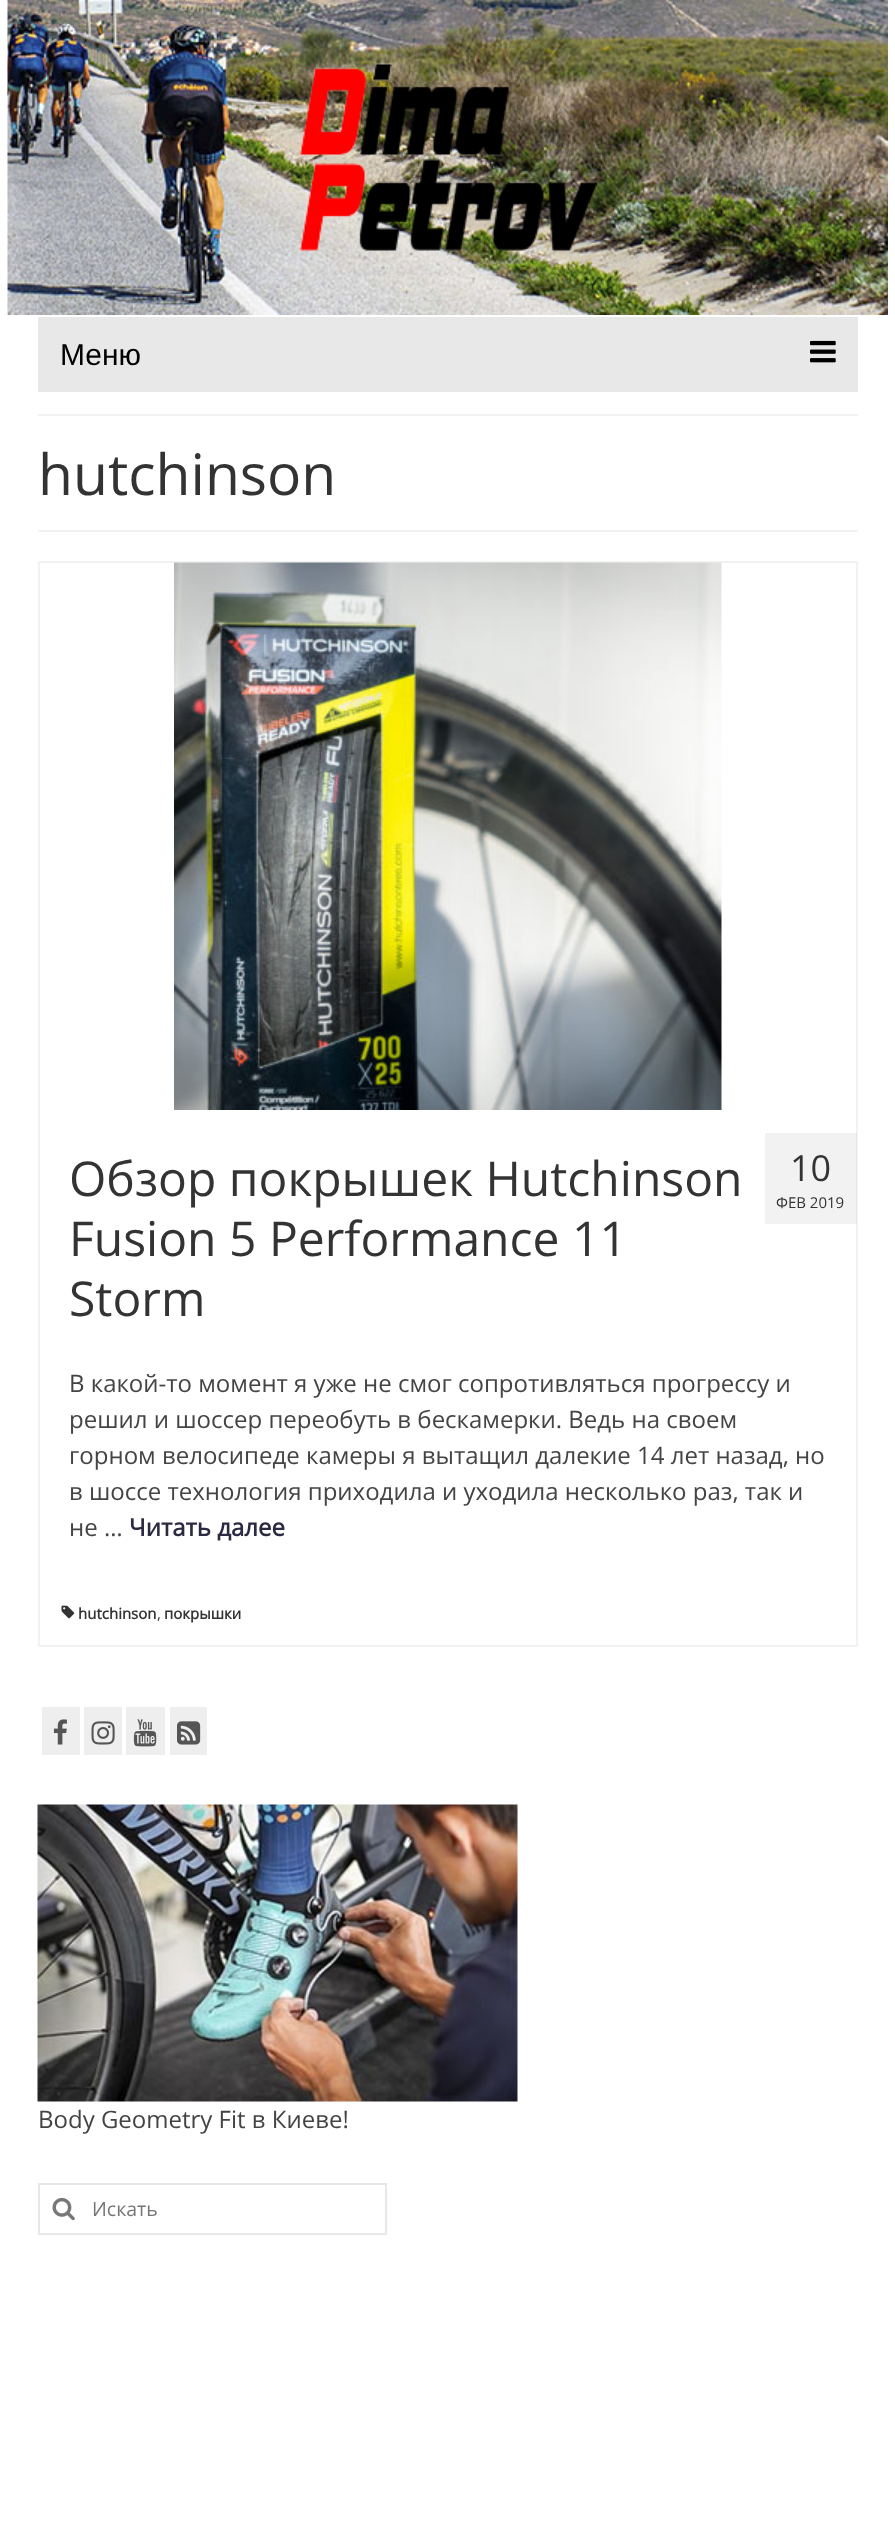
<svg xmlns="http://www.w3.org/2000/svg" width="895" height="2531">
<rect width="100%" height="100%" fill="#fff"/>
<image x="7" y="0" width="881" height="315" href="media/1.png"/>
<image x="298" y="62" width="301" height="190" href="media/2.png"/>
<rect x="38" y="317" width="820" height="75" fill="#e8e8e8"/>
<text x="60" y="365" style="font-family:Liberation Sans;font-size:30px;fill:#000">Меню</text>
<image x="810" y="340" width="26" height="23" href="media/3.png"/>
<rect x="38" y="414" width="820" height="2" fill="#f2f2f2"/>
<rect x="38" y="530" width="820" height="2" fill="#f2f2f2"/>
<text x="38" y="495" style="font-family:Open Sans;font-size:57px;fill:#333">hutchinson</text>
<rect x="39" y="562" width="818" height="1084" fill="none" stroke="#f2f2f2" stroke-width="2"/>
<image x="174" y="562" width="548" height="548" href="media/4.png"/>
<text x="69" y="1196" style="font-family:Open Sans;font-size:48px;fill:#333">Обзор покрышек Hutchinson</text>
<text x="69" y="1256" style="font-family:Open Sans;font-size:48px;fill:#333">Fusion 5 Performance 11</text>
<text x="69" y="1316" style="font-family:Open Sans;font-size:48px;fill:#333">Storm</text>
<rect x="765" y="1133" width="92" height="91" fill="#0000000d"/>
<text x="790" y="1181" style="font-family:Open Sans;font-size:36px;fill:#333">10</text>
<text x="776" y="1208" style="font-family:Open Sans;font-size:15px;fill:#333">ФЕВ 2019</text>
<text x="69" y="1392" style="font-family:Open Sans;font-size:24px;fill:#444">В какой-то момент я уже не смог сопротивляться прогрессу и</text>
<text x="69" y="1428" style="font-family:Open Sans;font-size:24px;fill:#444">решил и шоссер переобуть в бескамерки. Ведь на своем</text>
<text x="69" y="1464" style="font-family:Open Sans;font-size:24px;fill:#444">горном велосипеде камеры я вытащил далекие 14 лет назад, но</text>
<text x="69" y="1500" style="font-family:Open Sans;font-size:24px;fill:#444">в шоссе технология приходила и уходила несколько раз, так и</text>
<text x="69" y="1536" style="font-family:Open Sans;font-size:24px;fill:#444">не …</text>
<text x="129" y="1536" style="font-family:Open Sans;font-size:24px;font-weight:bold;fill:#2c2a42">Читать далее</text>
<image x="61" y="1605" width="14" height="14" href="media/5.png"/>
<text x="78" y="1619" style="font-family:Open Sans;font-size:15px;font-weight:bold;fill:#333">hutchinson</text>
<text x="157" y="1619" style="font-family:Open Sans;font-size:15px;fill:#333">,</text>
<text x="164" y="1619" style="font-family:Open Sans;font-size:15px;font-weight:bold;fill:#333">покрышки</text>
<rect x="42" y="1707" width="38" height="48" fill="#eee"/>
<image x="53" y="1719" width="14" height="26" href="media/6.png"/>
<rect x="84" y="1707" width="38" height="48" fill="#eee"/>
<image x="91" y="1721" width="24" height="24" href="media/7.png"/>
<rect x="126" y="1707" width="39" height="48" fill="#eee"/>
<image x="133" y="1719" width="24" height="28" href="media/8.png"/>
<rect x="170" y="1707" width="37" height="48" fill="#eee"/>
<image x="177" y="1721" width="24" height="24" href="media/9.png"/>
<image x="37" y="1804" width="481" height="298" href="media/10.png"/>
<text x="38" y="2128" style="font-family:Open Sans;font-size:24px;fill:#444">Body Geometry Fit в Киеве!</text>
<rect x="39" y="2184" width="347" height="50" fill="none" stroke="#e7e7e7" stroke-width="2"/>
<image x="52" y="2197" width="23" height="24" href="media/11.png"/>
<text x="92" y="2216" style="font-family:Open Sans;font-size:19.5px;fill:#757575">Искать</text>
</svg>
